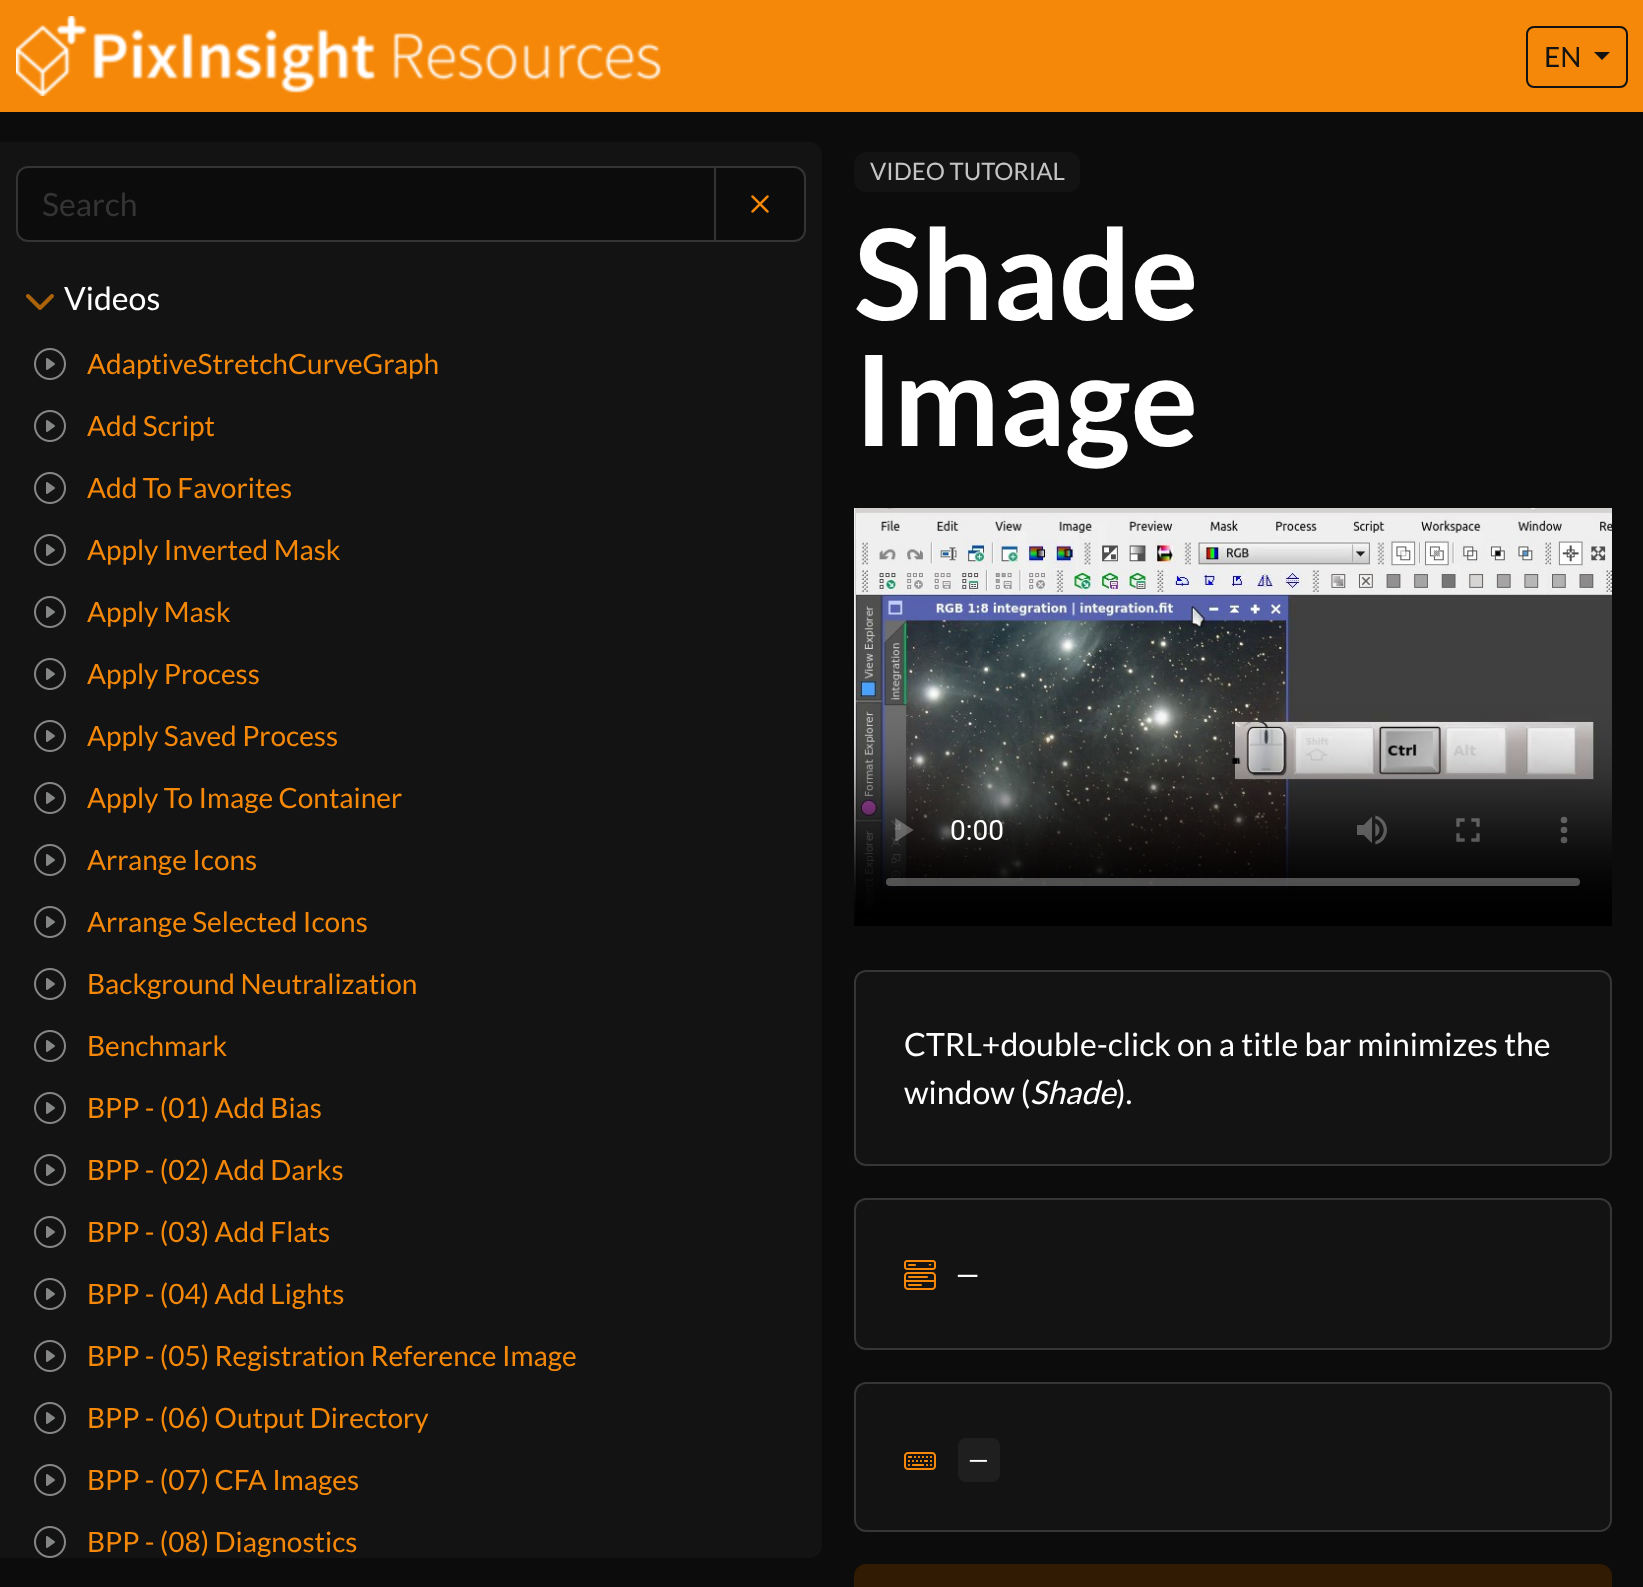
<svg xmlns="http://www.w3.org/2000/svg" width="1643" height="1587">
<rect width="100%" height="100%" fill="#0c0c0c"/>
<rect width="1643" height="112" fill="#f58808"/>
<image x="16" y="16" width="645" height="80" href="media/1.png"/>
<rect x="1527" y="27" width="100" height="60" rx="7" fill="none" stroke="#131313" stroke-width="2"/>
<text x="1544" y="67" style="font-family:Lato;font-size:28px;fill:#131313">EN</text>
<path d="M1594 52h16l-8 8z" fill="#131313"/>
<path d="M0 142h810c6.5 0 12 5.5 12 12v1392c0 6.5-5.5 12-12 12h-810z" fill="#131313"/>
<path d="M715 167h79c6 0 11 5 11 11v52c0 6-5 11-11 11h-79z" fill="#0c0c0c" stroke="#343434" stroke-width="2"/>
<path d="M28 167h687v74h-687c-6 0-11-5-11-11v-52c0-6 5-11 11-11z" fill="#0c0c0c" stroke="#343434" stroke-width="2"/>
<text x="42" y="216" style="font-family:Lato;font-size:32px;fill:#343434">Search</text>
<image x="751" y="195" width="18" height="18" href="media/2.png"/>
<image x="26" y="294" width="28" height="16" href="media/3.png"/>
<text x="64" y="310" style="font-family:Lato;font-size:32px;fill:#fff">Videos</text>
<image x="34" y="348" width="32" height="32" href="media/4.png"/>
<text x="87" y="374" style="font-family:Lato;font-size:28px;fill:#f58808">AdaptiveStretchCurveGraph</text>
<image x="34" y="410" width="32" height="32" href="media/4.png"/>
<text x="87" y="436" style="font-family:Lato;font-size:28px;fill:#f58808">Add Script</text>
<image x="34" y="472" width="32" height="32" href="media/4.png"/>
<text x="87" y="498" style="font-family:Lato;font-size:28px;fill:#f58808">Add To Favorites</text>
<image x="34" y="534" width="32" height="32" href="media/4.png"/>
<text x="87" y="560" style="font-family:Lato;font-size:28px;fill:#f58808">Apply Inverted Mask</text>
<image x="34" y="596" width="32" height="32" href="media/4.png"/>
<text x="87" y="622" style="font-family:Lato;font-size:28px;fill:#f58808">Apply Mask</text>
<image x="34" y="658" width="32" height="32" href="media/4.png"/>
<text x="87" y="684" style="font-family:Lato;font-size:28px;fill:#f58808">Apply Process</text>
<image x="34" y="720" width="32" height="32" href="media/4.png"/>
<text x="87" y="746" style="font-family:Lato;font-size:28px;fill:#f58808">Apply Saved Process</text>
<image x="34" y="782" width="32" height="32" href="media/4.png"/>
<text x="87" y="808" style="font-family:Lato;font-size:28px;fill:#f58808">Apply To Image Container</text>
<image x="34" y="844" width="32" height="32" href="media/4.png"/>
<text x="87" y="870" style="font-family:Lato;font-size:28px;fill:#f58808">Arrange Icons</text>
<image x="34" y="906" width="32" height="32" href="media/4.png"/>
<text x="87" y="932" style="font-family:Lato;font-size:28px;fill:#f58808">Arrange Selected Icons</text>
<image x="34" y="968" width="32" height="32" href="media/4.png"/>
<text x="87" y="994" style="font-family:Lato;font-size:28px;fill:#f58808">Background Neutralization</text>
<image x="34" y="1030" width="32" height="32" href="media/4.png"/>
<text x="87" y="1056" style="font-family:Lato;font-size:28px;fill:#f58808">Benchmark</text>
<image x="34" y="1092" width="32" height="32" href="media/4.png"/>
<text x="87" y="1118" style="font-family:Lato;font-size:28px;fill:#f58808">BPP - (01) Add Bias</text>
<image x="34" y="1154" width="32" height="32" href="media/4.png"/>
<text x="87" y="1180" style="font-family:Lato;font-size:28px;fill:#f58808">BPP - (02) Add Darks</text>
<image x="34" y="1216" width="32" height="32" href="media/4.png"/>
<text x="87" y="1242" style="font-family:Lato;font-size:28px;fill:#f58808">BPP - (03) Add Flats</text>
<image x="34" y="1278" width="32" height="32" href="media/4.png"/>
<text x="87" y="1304" style="font-family:Lato;font-size:28px;fill:#f58808">BPP - (04) Add Lights</text>
<image x="34" y="1340" width="32" height="32" href="media/4.png"/>
<text x="87" y="1366" style="font-family:Lato;font-size:28px;fill:#f58808">BPP - (05) Registration Reference Image</text>
<image x="34" y="1402" width="32" height="32" href="media/4.png"/>
<text x="87" y="1428" style="font-family:Lato;font-size:28px;fill:#f58808">BPP - (06) Output Directory</text>
<image x="34" y="1464" width="32" height="32" href="media/4.png"/>
<text x="87" y="1490" style="font-family:Lato;font-size:28px;fill:#f58808">BPP - (07) CFA Images</text>
<image x="34" y="1526" width="32" height="32" href="media/4.png"/>
<text x="87" y="1552" style="font-family:Lato;font-size:28px;fill:#f58808">BPP - (08) Diagnostics</text>
<rect x="854" y="152" width="226" height="40" rx="12" fill="#131313"/>
<text x="870" y="180" style="font-family:Lato;font-size:24px;fill:#c4c4c4">VIDEO TUTORIAL</text>
<text x="854" y="320" style="font-family:Lato;font-size:126px;font-weight:bold;fill:#fff">Shade</text>
<text x="854" y="446" style="font-family:Lato;font-size:126px;font-weight:bold;fill:#fff">Image</text>
<image x="854" y="508" width="758" height="418" href="media/5.png"/>
<rect x="854" y="970" width="758" height="196" rx="12" fill="#131313"/>
<rect x="855" y="971" width="756" height="194" rx="11" fill="none" stroke="#ffffff26" stroke-width="2"/>
<text x="904" y="1056" style="font-family:Lato;font-size:32px;fill:#fff">CTRL+double-click on a title bar minimizes the</text>
<text x="904" y="1104" style="font-family:Lato;font-size:32px;fill:#fff">window (</text>
<text x="1030" y="1104" style="font-family:Lato;font-size:32px;font-style:italic;fill:#fff">Shade</text>
<text x="1116" y="1104" style="font-family:Lato;font-size:32px;fill:#fff">).</text>
<rect x="854" y="1198" width="758" height="152" rx="12" fill="#131313"/>
<rect x="855" y="1199" width="756" height="150" rx="11" fill="none" stroke="#ffffff26" stroke-width="2"/>
<image x="904" y="1260" width="32" height="30" href="media/6.png"/>
<text x="958" y="1284" style="font-family:Liberation Mono;font-size:32px;letter-spacing:-1px;fill:#fff">—</text>
<rect x="854" y="1382" width="758" height="150" rx="12" fill="#131313"/>
<rect x="855" y="1383" width="756" height="148" rx="11" fill="none" stroke="#ffffff26" stroke-width="2"/>
<image x="904" y="1452" width="32" height="18" href="media/7.png"/>
<rect x="958" y="1438" width="42" height="44" rx="8" fill="#1f1f1f"/>
<text x="970" y="1468" style="font-family:Liberation Mono;font-size:28px;fill:#fff">—</text>
<path d="M866 1565h734c6 0 11 5 11 11v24h-756v-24c0-6 5-11 11-11z" fill="#311b02" stroke="#311b02" stroke-width="2"/>
</svg>
